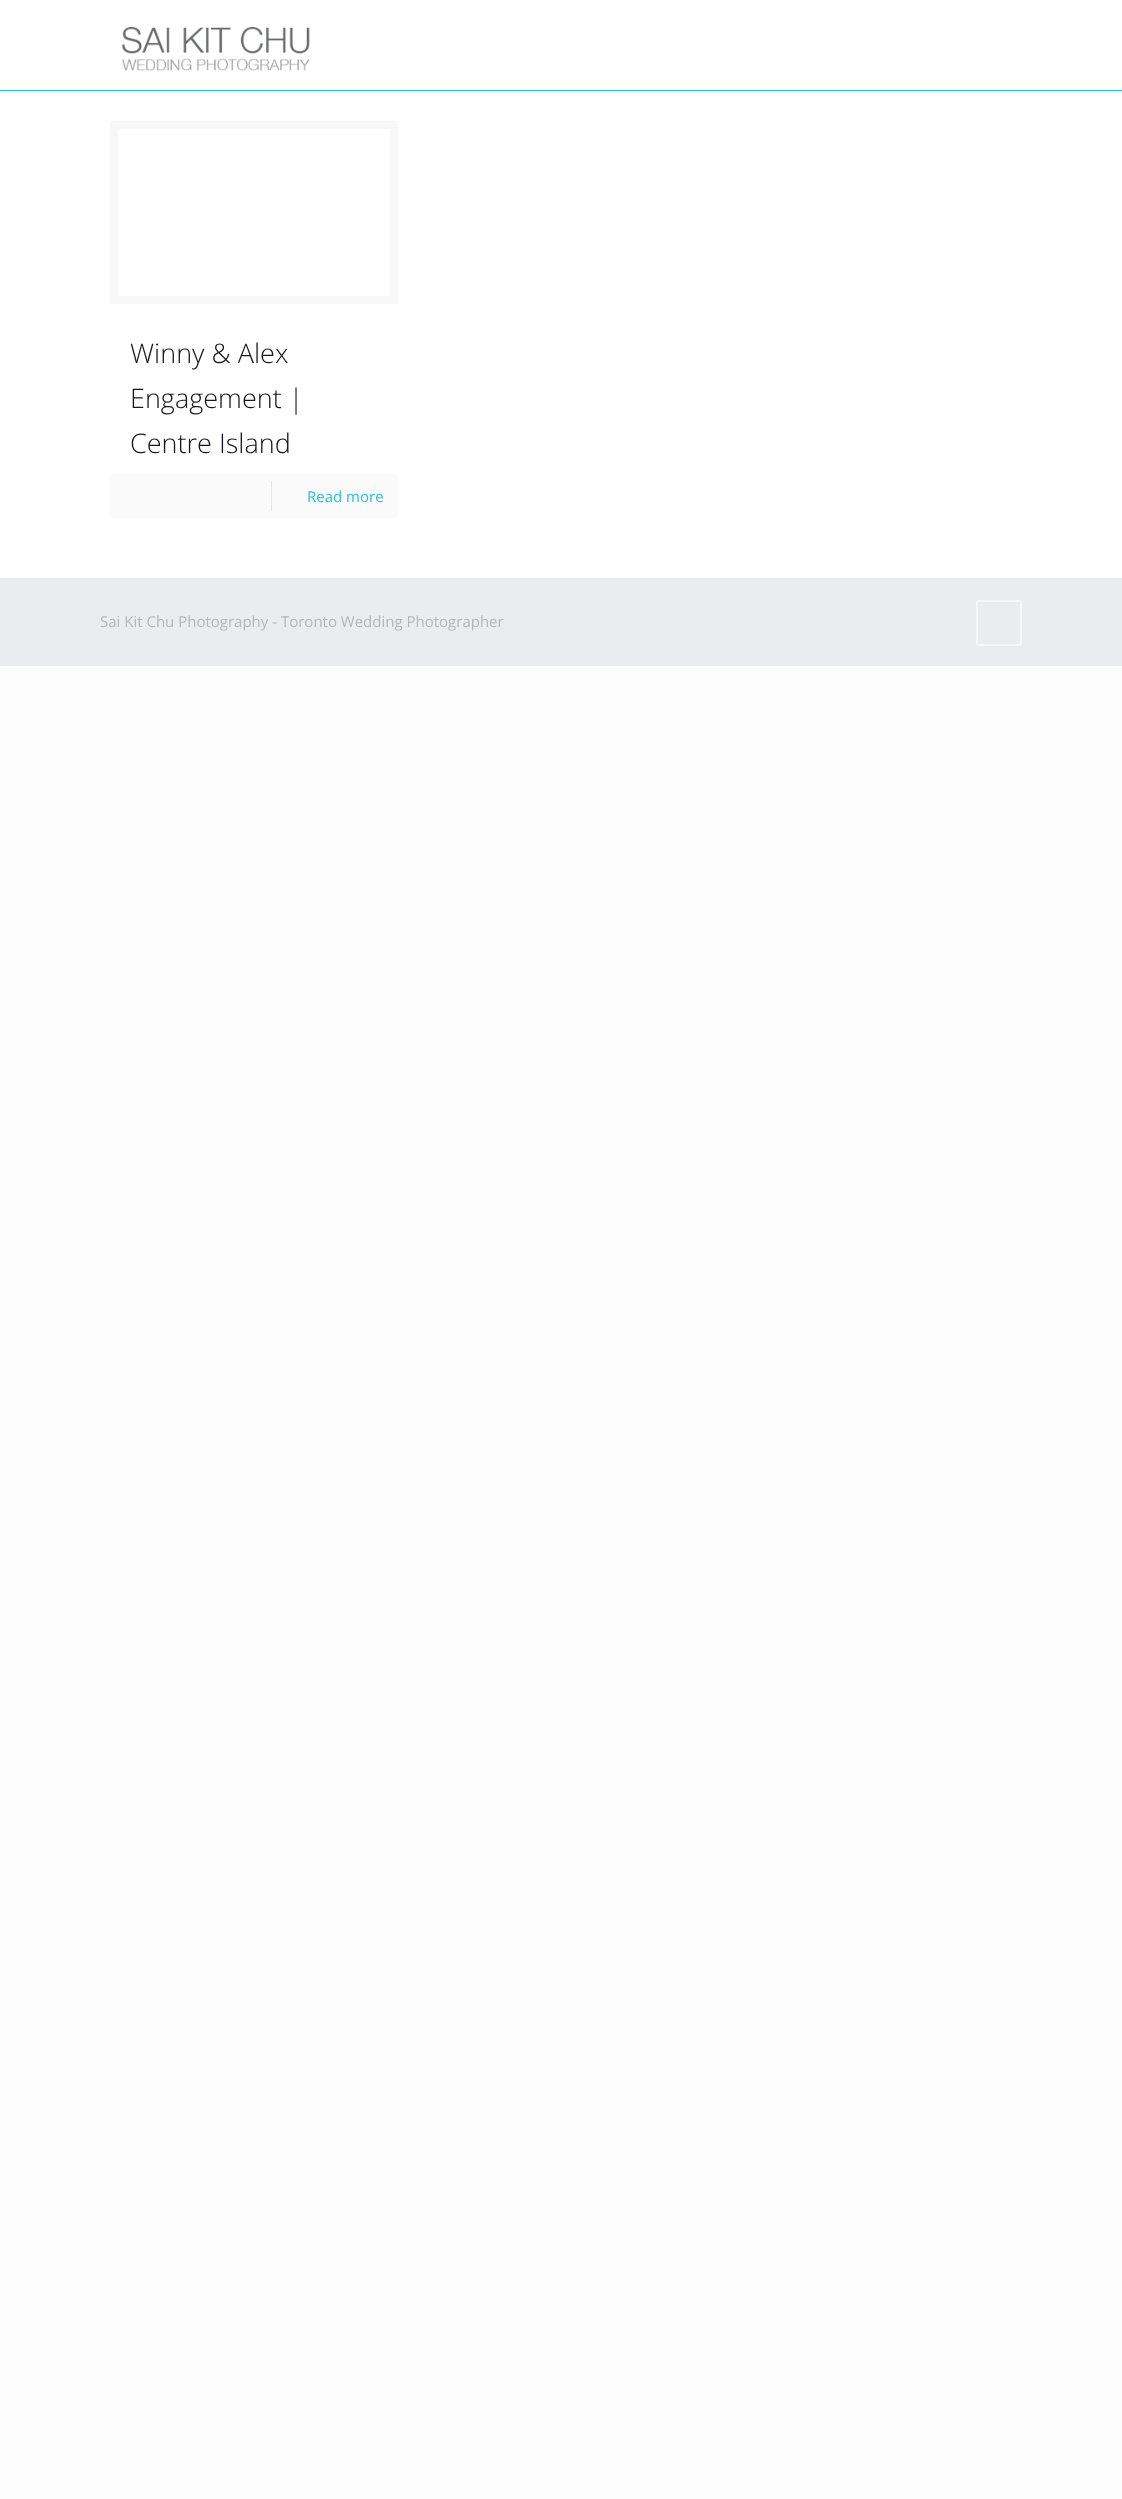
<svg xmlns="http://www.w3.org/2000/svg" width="1122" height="2499">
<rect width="100%" height="100%" fill="#fcfcfc"/>
<rect width="1122" height="578" fill="#fff"/>
<rect y="90" width="1122" height="1" fill="#27c2d6"/>
<image x="121" y="27" width="189" height="44" href="media/1.png"/>
<rect x="114" y="125" width="280" height="175" fill="none" stroke="#f8f8f8" stroke-width="8"/>
<text x="130" y="363" style="font-family:Open Sans;font-size:27px;font-weight:300;fill:#16171e">Winny &amp; Alex</text>
<text x="130" y="408" style="font-family:Open Sans;font-size:27px;font-weight:300;fill:#16171e">Engagement |</text>
<text x="130" y="453" style="font-family:Open Sans;font-size:27px;font-weight:300;fill:#16171e">Centre Island</text>
<rect x="110" y="474" width="288" height="44" fill="#fafafa"/>
<rect x="271" y="481" width="1" height="30" fill="#e6e6e6"/>
<text x="307" y="502" style="font-family:Open Sans;font-size:15px;fill:#27c2d6">Read more</text>
<rect y="579" width="1122" height="87" fill="#ebeced"/>
<rect y="578" width="1122" height="1" fill="#edeeef"/>
<text x="100" y="627" style="font-family:Open Sans;font-size:15px;fill:#b6b6b6">Sai Kit Chu Photography - Toronto Wedding Photographer</text>
<rect x="977" y="601" width="44" height="44" rx="2" fill="none" stroke="#f7f7f7" stroke-width="2"/>
</svg>
